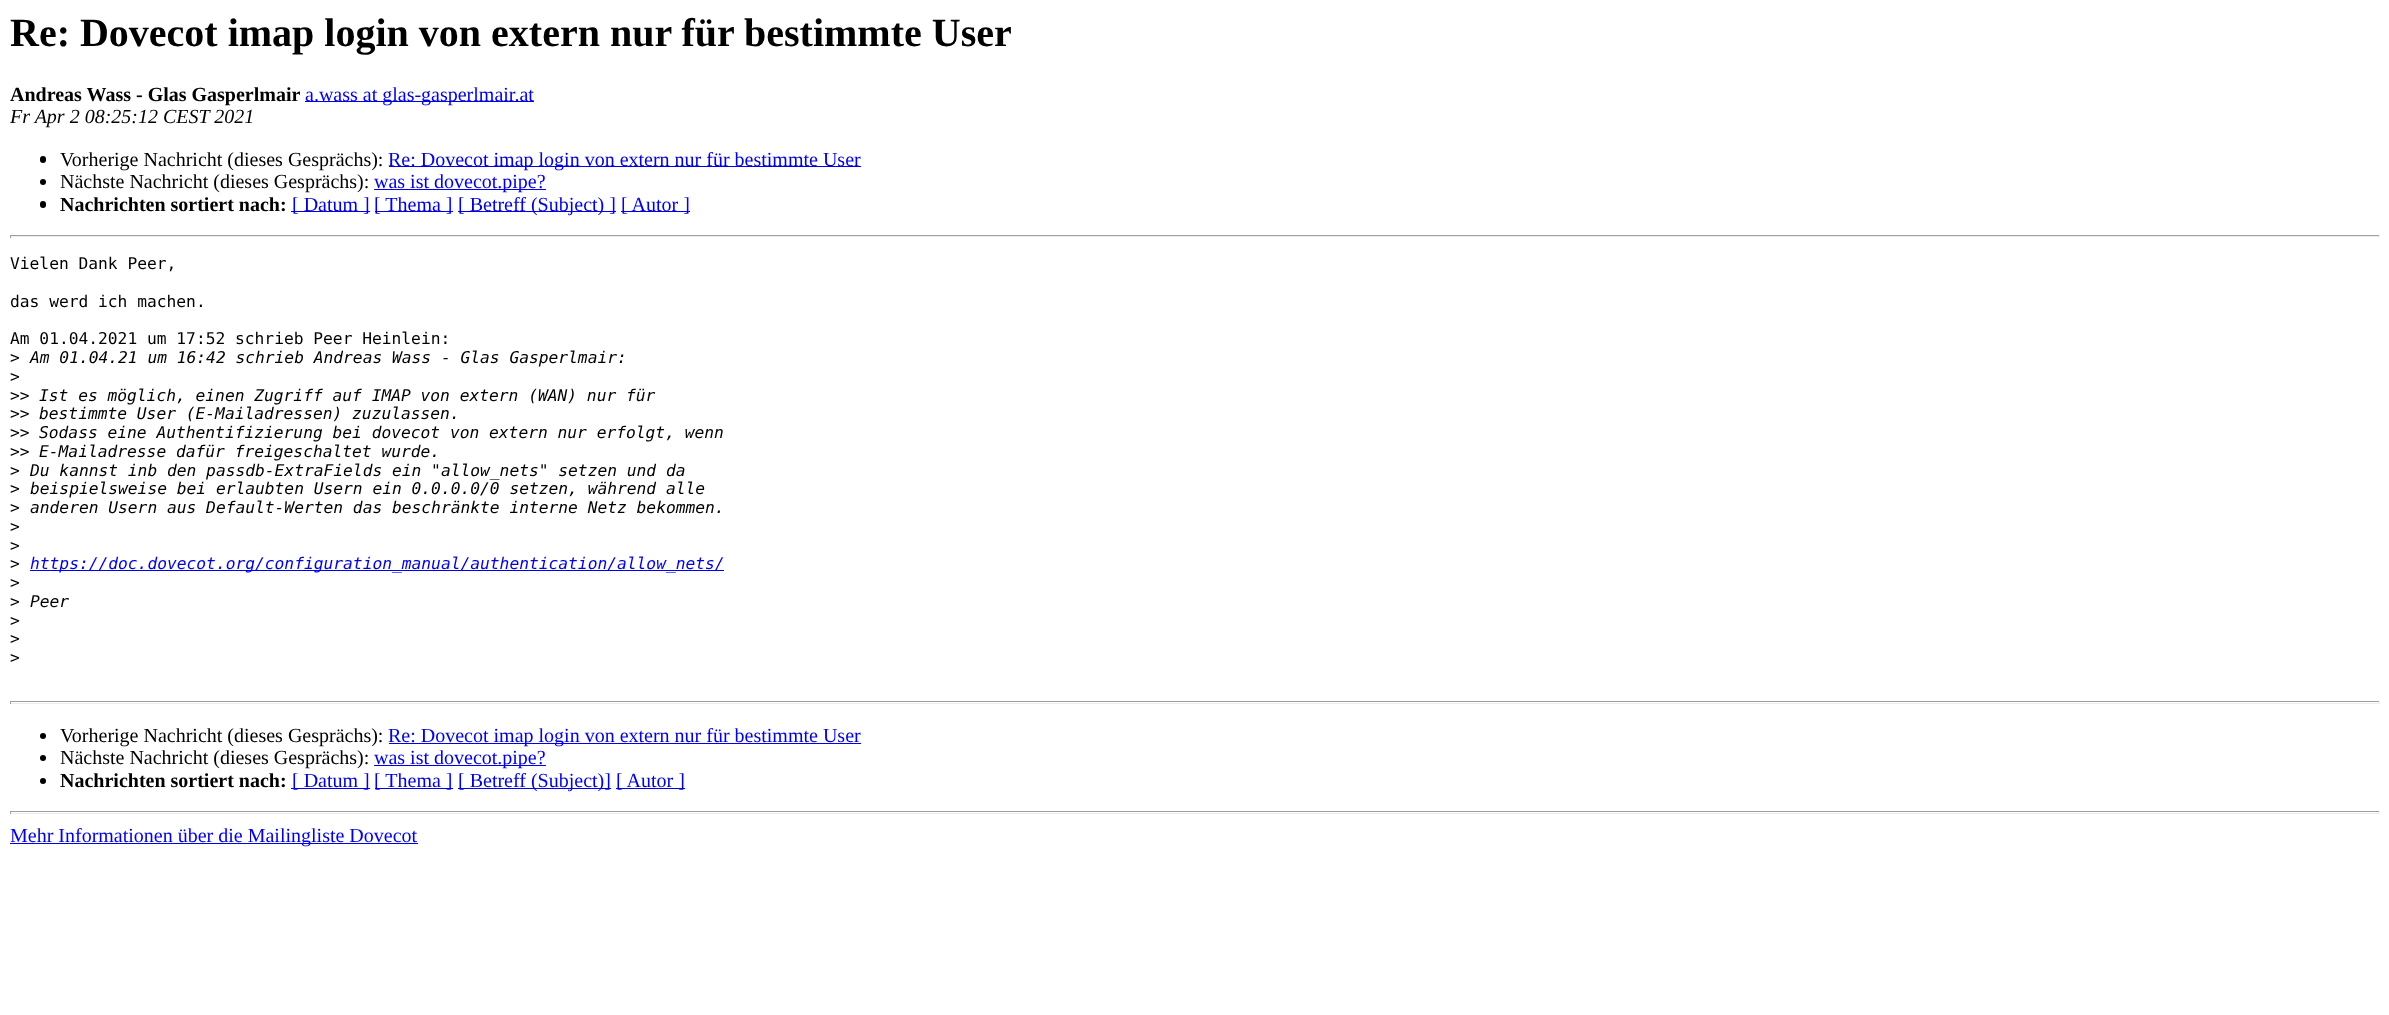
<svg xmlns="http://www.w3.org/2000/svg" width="2389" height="1015">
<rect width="100%" height="100%" fill="#fff"/>
<text x="10" y="46" style="font-family:Liberation Serif;font-size:40px;font-weight:bold;fill:#000">Re: Dovecot imap login von extern nur für bestimmte User</text>
<text x="10" y="101" style="font-family:Liberation Serif;font-size:20px;font-weight:bold;fill:#000">Andreas Wass - Glas Gasperlmair</text>
<rect x="305" y="101" width="229" height="1" fill="#00e"/>
<text x="305" y="101" style="font-family:Liberation Serif;font-size:20px;fill:#00e">a.wass at glas-gasperlmair.at</text>
<text x="10" y="123" style="font-family:Liberation Serif;font-size:20px;font-style:italic;fill:#000">Fr Apr 2 08:25:12 CEST 2021</text>
<rect x="40" y="156" width="6" height="7" rx="3" fill="#000"/>
<text x="60" y="166" style="font-family:Liberation Serif;font-size:20px;fill:#000">Vorherige Nachricht (dieses Gesprächs):</text>
<rect x="389" y="166" width="472" height="1" fill="#00e"/>
<text x="388" y="166" style="font-family:Liberation Serif;font-size:20px;fill:#00e">Re: Dovecot imap login von extern nur für bestimmte User</text>
<circle cx="43" cy="182" r="3" fill="#000"/>
<text x="60" y="188" style="font-family:Liberation Serif;font-size:20px;fill:#000">Nächste Nachricht (dieses Gesprächs):</text>
<rect x="374" y="189" width="172" height="1" fill="#00e"/>
<text x="374" y="188" style="font-family:Liberation Serif;font-size:20px;fill:#00e">was ist dovecot.pipe?</text>
<rect x="40" y="201" width="6" height="7" rx="3" fill="#000"/>
<text x="60" y="211" style="font-family:Liberation Serif;font-size:20px;font-weight:bold;fill:#000">Nachrichten sortiert nach:</text>
<rect x="291" y="211" width="79" height="1" fill="#00e"/>
<text x="292" y="211" style="font-family:Liberation Serif;font-size:20px;fill:#00e">[ Datum ]</text>
<rect x="375" y="211" width="78" height="1" fill="#00e"/>
<text x="374" y="211" style="font-family:Liberation Serif;font-size:20px;fill:#00e">[ Thema ]</text>
<rect x="458" y="211" width="158" height="1" fill="#00e"/>
<text x="458" y="211" style="font-family:Liberation Serif;font-size:20px;fill:#00e">[ Betreff (Subject) ]</text>
<rect x="621" y="211" width="69" height="1" fill="#00e"/>
<text x="621" y="211" style="font-family:Liberation Serif;font-size:20px;fill:#00e">[ Autor ]</text>
<rect x="10" y="235" width="2370" height="1" fill="#9f9f9f"/>
<rect x="2379" y="235" width="1" height="3" fill="#eee"/>
<rect x="10" y="236" width="2370" height="1" fill="#eee"/>
<rect x="10" y="235" width="1" height="3" fill="#9f9f9f"/>
<text x="10" y="269" style="font-family:DejaVu Sans Mono;font-size:16.25px;fill:#000">Vielen Dank Peer,</text>
<text x="10" y="307" style="font-family:DejaVu Sans Mono;font-size:16.25px;fill:#000">das werd ich machen.</text>
<text x="10" y="344" style="font-family:DejaVu Sans Mono;font-size:16.25px;fill:#000">Am 01.04.2021 um 17:52 schrieb Peer Heinlein:</text>
<text x="10" y="363" style="font-family:DejaVu Sans Mono;font-size:16.25px;fill:#000">&gt;</text>
<text x="30" y="363" style="font-family:DejaVu Sans Mono;font-size:16.25px;font-style:italic;fill:#000">Am 01.04.21 um 16:42 schrieb Andreas Wass - Glas Gasperlmair:</text>
<text x="10" y="382" style="font-family:DejaVu Sans Mono;font-size:16.25px;fill:#000">&gt;</text>
<text x="10" y="401" style="font-family:DejaVu Sans Mono;font-size:16.25px;fill:#000">&gt;&gt;</text>
<text x="39" y="401" style="font-family:DejaVu Sans Mono;font-size:16.25px;font-style:italic;fill:#000">Ist es möglich, einen Zugriff auf IMAP von extern (WAN) nur für</text>
<text x="10" y="419" style="font-family:DejaVu Sans Mono;font-size:16.25px;fill:#000">&gt;&gt;</text>
<text x="39" y="419" style="font-family:DejaVu Sans Mono;font-size:16.25px;font-style:italic;fill:#000">bestimmte User (E-Mailadressen) zuzulassen.</text>
<text x="10" y="438" style="font-family:DejaVu Sans Mono;font-size:16.25px;fill:#000">&gt;&gt;</text>
<text x="39" y="438" style="font-family:DejaVu Sans Mono;font-size:16.25px;font-style:italic;fill:#000">Sodass eine Authentifizierung bei dovecot von extern nur erfolgt, wenn</text>
<text x="10" y="457" style="font-family:DejaVu Sans Mono;font-size:16.25px;fill:#000">&gt;&gt;</text>
<text x="39" y="457" style="font-family:DejaVu Sans Mono;font-size:16.25px;font-style:italic;fill:#000">E-Mailadresse dafür freigeschaltet wurde.</text>
<text x="10" y="476" style="font-family:DejaVu Sans Mono;font-size:16.25px;fill:#000">&gt;</text>
<text x="30" y="476" style="font-family:DejaVu Sans Mono;font-size:16.25px;font-style:italic;fill:#000">Du kannst inb den passdb-ExtraFields ein "allow_nets" setzen und da</text>
<text x="10" y="494" style="font-family:DejaVu Sans Mono;font-size:16.25px;fill:#000">&gt;</text>
<text x="30" y="494" style="font-family:DejaVu Sans Mono;font-size:16.25px;font-style:italic;fill:#000">beispielsweise bei erlaubten Usern ein 0.0.0.0/0 setzen, während alle</text>
<text x="10" y="513" style="font-family:DejaVu Sans Mono;font-size:16.25px;fill:#000">&gt;</text>
<text x="30" y="513" style="font-family:DejaVu Sans Mono;font-size:16.25px;font-style:italic;fill:#000">anderen Usern aus Default-Werten das beschränkte interne Netz bekommen.</text>
<text x="10" y="532" style="font-family:DejaVu Sans Mono;font-size:16.25px;fill:#000">&gt;</text>
<text x="10" y="551" style="font-family:DejaVu Sans Mono;font-size:16.25px;fill:#000">&gt;</text>
<text x="10" y="569" style="font-family:DejaVu Sans Mono;font-size:16.25px;fill:#000">&gt;</text>
<rect x="30" y="570" width="694" height="1" fill="#00e"/>
<text x="30" y="569" style="font-family:DejaVu Sans Mono;font-size:16.25px;font-style:italic;fill:#00e">https://doc.dovecot.org/configuration_manual/authentication/allow_nets/</text>
<text x="10" y="588" style="font-family:DejaVu Sans Mono;font-size:16.25px;fill:#000">&gt;</text>
<text x="10" y="607" style="font-family:DejaVu Sans Mono;font-size:16.25px;fill:#000">&gt;</text>
<text x="30" y="607" style="font-family:DejaVu Sans Mono;font-size:16.25px;font-style:italic;fill:#000">Peer</text>
<text x="10" y="626" style="font-family:DejaVu Sans Mono;font-size:16.25px;fill:#000">&gt;</text>
<text x="10" y="644" style="font-family:DejaVu Sans Mono;font-size:16.25px;fill:#000">&gt;</text>
<text x="10" y="663" style="font-family:DejaVu Sans Mono;font-size:16.25px;fill:#000">&gt;</text>
<rect x="10" y="701" width="2370" height="1" fill="#9f9f9f"/>
<rect x="2379" y="701" width="1" height="3" fill="#eee"/>
<rect x="10" y="703" width="2370" height="1" fill="#eee"/>
<rect x="10" y="701" width="1" height="3" fill="#9f9f9f"/>
<circle cx="43" cy="736" r="3" fill="#000"/>
<text x="60" y="742" style="font-family:Liberation Serif;font-size:20px;fill:#000">Vorherige Nachricht (dieses Gesprächs):</text>
<rect x="389" y="743" width="472" height="1" fill="#00e"/>
<text x="388" y="742" style="font-family:Liberation Serif;font-size:20px;fill:#00e">Re: Dovecot imap login von extern nur für bestimmte User</text>
<circle cx="43" cy="758" r="3" fill="#000"/>
<text x="60" y="764" style="font-family:Liberation Serif;font-size:20px;fill:#000">Nächste Nachricht (dieses Gesprächs):</text>
<rect x="374" y="765" width="172" height="1" fill="#00e"/>
<text x="374" y="764" style="font-family:Liberation Serif;font-size:20px;fill:#00e">was ist dovecot.pipe?</text>
<circle cx="43" cy="781" r="3" fill="#000"/>
<text x="60" y="787" style="font-family:Liberation Serif;font-size:20px;font-weight:bold;fill:#000">Nachrichten sortiert nach:</text>
<rect x="291" y="788" width="79" height="1" fill="#00e"/>
<text x="292" y="787" style="font-family:Liberation Serif;font-size:20px;fill:#00e">[ Datum ]</text>
<rect x="375" y="788" width="78" height="1" fill="#00e"/>
<text x="374" y="787" style="font-family:Liberation Serif;font-size:20px;fill:#00e">[ Thema ]</text>
<rect x="458" y="788" width="153" height="1" fill="#00e"/>
<text x="458" y="787" style="font-family:Liberation Serif;font-size:20px;fill:#00e">[ Betreff (Subject)]</text>
<rect x="616" y="788" width="69" height="1" fill="#00e"/>
<text x="616" y="787" style="font-family:Liberation Serif;font-size:20px;fill:#00e">[ Autor ]</text>
<rect x="10" y="811" width="2370" height="1" fill="#9f9f9f"/>
<rect x="2379" y="811" width="1" height="3" fill="#eee"/>
<rect x="10" y="813" width="2370" height="1" fill="#eee"/>
<rect x="10" y="811" width="1" height="3" fill="#9f9f9f"/>
<rect x="10" y="843" width="408" height="1" fill="#00e"/>
<text x="10" y="842" style="font-family:Liberation Serif;font-size:20px;fill:#00e">Mehr Informationen über die Mailingliste Dovecot</text>
</svg>
